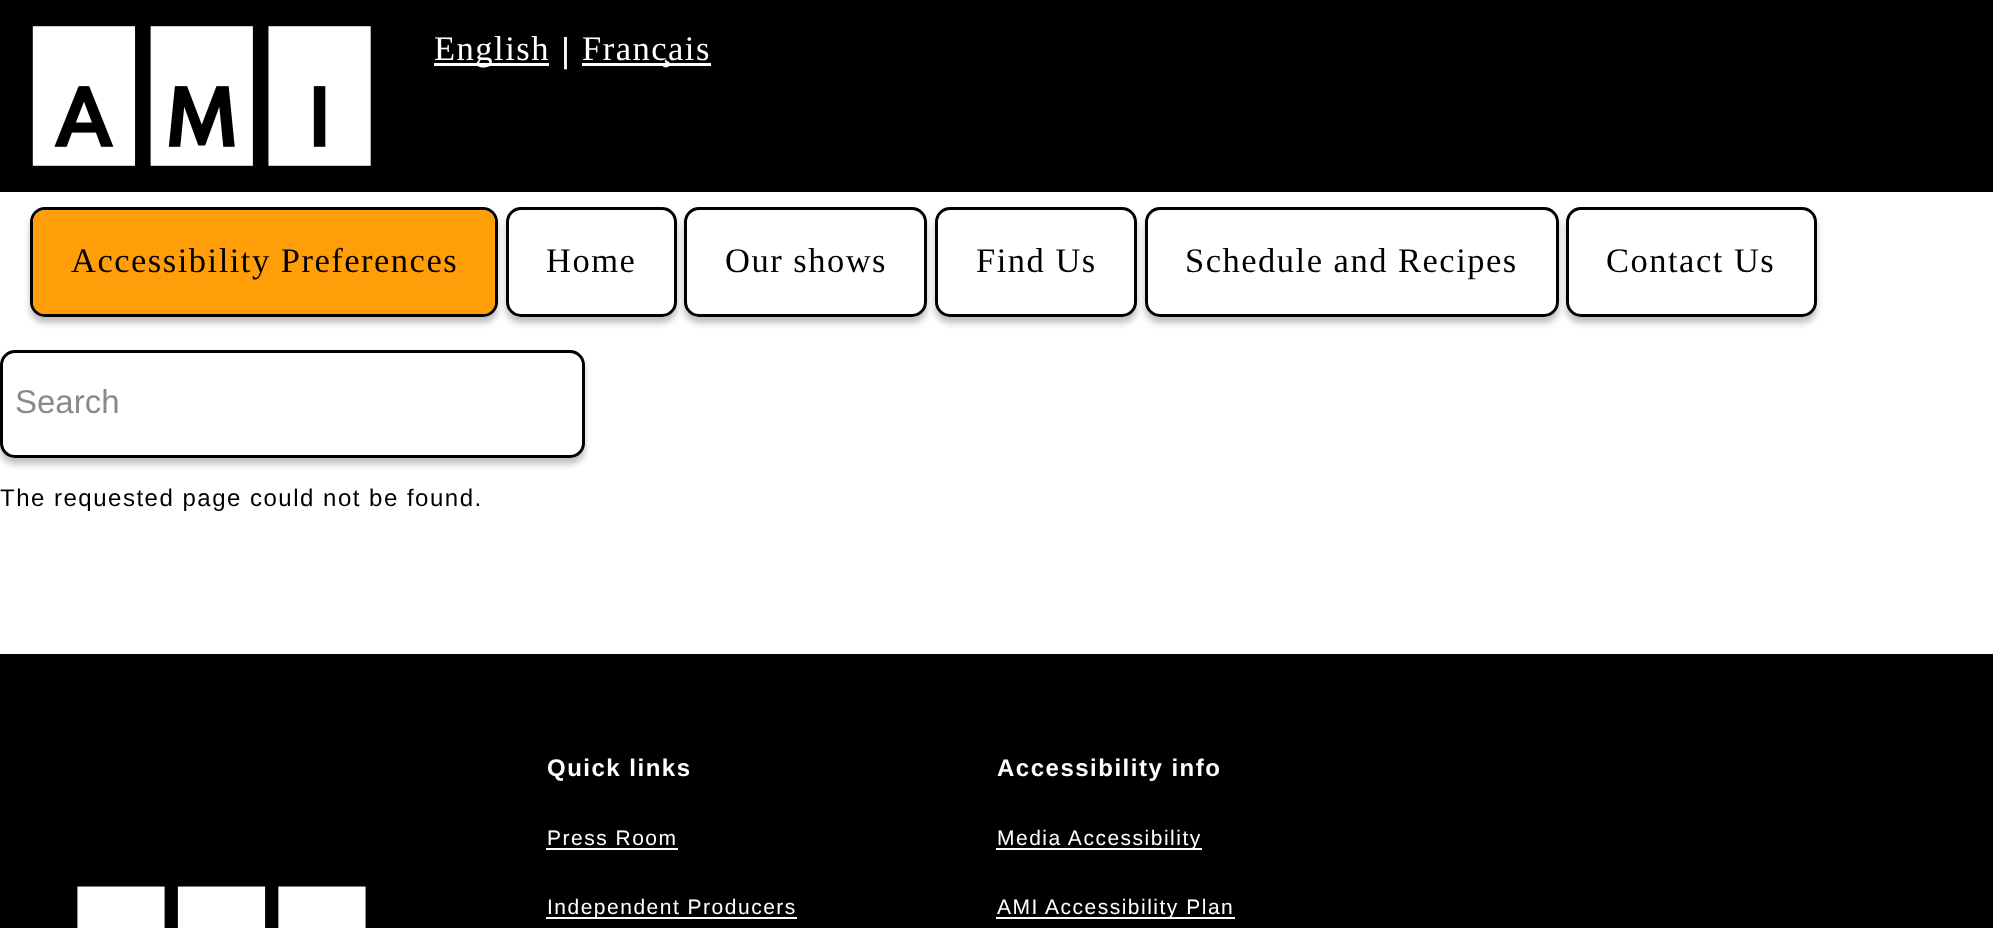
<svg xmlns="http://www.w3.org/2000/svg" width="1993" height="928">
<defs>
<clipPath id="clip1"><path d="M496 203h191v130h-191zm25 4h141c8.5 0 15 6.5 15 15v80c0 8.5-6.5 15-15 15h-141c-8.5 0-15-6.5-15-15v-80c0-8.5 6.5-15 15-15z" clip-rule="evenodd"/></clipPath>
<clipPath id="clip2"><path d="M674 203h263v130h-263zm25 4h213c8.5 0 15 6.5 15 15v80c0 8.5-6.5 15-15 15h-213c-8.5 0-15-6.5-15-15v-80c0-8.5 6.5-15 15-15z" clip-rule="evenodd"/></clipPath>
<clipPath id="clip3"><path d="M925 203h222v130h-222zm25 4h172c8.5 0 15 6.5 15 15v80c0 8.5-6.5 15-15 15h-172c-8.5 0-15-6.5-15-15v-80c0-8.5 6.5-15 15-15z" clip-rule="evenodd"/></clipPath>
<clipPath id="clip4"><path d="M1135 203h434v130h-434zm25 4h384c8.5 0 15 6.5 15 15v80c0 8.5-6.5 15-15 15h-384c-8.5 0-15-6.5-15-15v-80c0-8.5 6.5-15 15-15z" clip-rule="evenodd"/></clipPath>
<clipPath id="clip5"><path d="M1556 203h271v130h-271zm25 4h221c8.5 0 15 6.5 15 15v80c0 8.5-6.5 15-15 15h-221c-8.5 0-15-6.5-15-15v-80c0-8.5 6.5-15 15-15z" clip-rule="evenodd"/></clipPath>
</defs>
<rect width="100%" height="100%" fill="#fff"/>
<rect width="1993" height="192" fill="#000"/>
<image x="32" y="26" width="339" height="140" href="media/1.png"/>
<rect x="434" y="63" width="115" height="3" fill="#fff"/>
<text x="434" y="60" style="font-family:Liberation Serif;font-size:34.5px;letter-spacing:1.5px;fill:#fff">English</text>
<text x="561" y="62" style="font-family:Liberation Sans;font-size:34.5px;letter-spacing:1.5px;fill:#fff">|</text>
<rect x="582" y="63" width="129" height="3" fill="#fff"/>
<text x="582" y="60" style="font-family:Liberation Serif;font-size:34.5px;letter-spacing:1.5px;fill:#fff">Français</text>
<rect x="30" y="213" width="468" height="110" rx="15" fill="#00000040" filter="blur(3px)"/>
<rect x="31.5" y="208.5" width="465" height="107" rx="13.5" fill="none" stroke="#000" stroke-width="3"/>
<rect x="33" y="210" width="462" height="104" rx="12" fill="#ff9e09"/>
<text x="71" y="272" style="font-family:Liberation Serif;font-size:34.5px;letter-spacing:1.5px;fill:#000">Accessibility Preferences</text>
<g clip-path="url(#clip1)">
<rect x="506" y="213" width="171" height="110" rx="15" fill="#00000040" filter="blur(3px)"/>
</g>
<rect x="507.5" y="208.5" width="168" height="107" rx="13.5" fill="none" stroke="#000" stroke-width="3"/>
<text x="546" y="272" style="font-family:Liberation Serif;font-size:34.5px;letter-spacing:1.5px;fill:#000">Home</text>
<g clip-path="url(#clip2)">
<rect x="684" y="213" width="243" height="110" rx="15" fill="#00000040" filter="blur(3px)"/>
</g>
<rect x="685.5" y="208.5" width="240" height="107" rx="13.5" fill="none" stroke="#000" stroke-width="3"/>
<text x="725" y="272" style="font-family:Liberation Serif;font-size:34.5px;letter-spacing:1.5px;fill:#000">Our shows</text>
<g clip-path="url(#clip3)">
<rect x="935" y="213" width="202" height="110" rx="15" fill="#00000040" filter="blur(3px)"/>
</g>
<rect x="936.5" y="208.5" width="199" height="107" rx="13.5" fill="none" stroke="#000" stroke-width="3"/>
<text x="976" y="272" style="font-family:Liberation Serif;font-size:34.5px;letter-spacing:1.5px;fill:#000">Find Us</text>
<g clip-path="url(#clip4)">
<rect x="1145" y="213" width="414" height="110" rx="15" fill="#00000040" filter="blur(3px)"/>
</g>
<rect x="1146.5" y="208.5" width="411" height="107" rx="13.5" fill="none" stroke="#000" stroke-width="3"/>
<text x="1185" y="272" style="font-family:Liberation Serif;font-size:34.5px;letter-spacing:1.5px;fill:#000">Schedule and Recipes</text>
<g clip-path="url(#clip5)">
<rect x="1566" y="213" width="251" height="110" rx="15" fill="#00000040" filter="blur(3px)"/>
</g>
<rect x="1567.5" y="208.5" width="248" height="107" rx="13.5" fill="none" stroke="#000" stroke-width="3"/>
<text x="1606" y="272" style="font-family:Liberation Serif;font-size:34.5px;letter-spacing:1.5px;fill:#000">Contact Us</text>
<rect y="356" width="585" height="108" rx="15" fill="#00000040" filter="blur(3px)"/>
<rect x="1.5" y="351.5" width="582" height="105" rx="13.5" fill="#fff" stroke="#000" stroke-width="3"/>
<text x="15" y="413" style="font-family:Liberation Sans;font-size:33px;fill:#8a8a8a">Search</text>
<text x="0" y="506" style="font-family:Liberation Sans;font-size:24px;letter-spacing:1.5px;fill:#000">The requested page could not be found.</text>
<rect y="654" width="1993" height="274" fill="#000"/>
<image x="77" y="886" width="289" height="42" href="media/2.png"/>
<text x="547" y="776" style="font-family:Liberation Sans;font-size:24px;font-weight:bold;letter-spacing:1.5px;fill:#fff">Quick links</text>
<text x="547" y="845" style="font-family:Liberation Sans;font-size:21px;letter-spacing:1.5px;fill:#fff">Press Room</text>
<rect x="546" y="848" width="132" height="2" fill="#fff"/>
<rect x="546" y="917" width="251" height="2" fill="#fff"/>
<text x="547" y="914" style="font-family:Liberation Sans;font-size:21px;letter-spacing:1.5px;fill:#fff">Independent Producers</text>
<text x="997" y="776" style="font-family:Liberation Sans;font-size:24px;font-weight:bold;letter-spacing:1.5px;fill:#fff">Accessibility info</text>
<rect x="996" y="848" width="206" height="2" fill="#fff"/>
<text x="997" y="845" style="font-family:Liberation Sans;font-size:21px;letter-spacing:1.5px;fill:#fff">Media Accessibility</text>
<rect x="996" y="917" width="239" height="2" fill="#fff"/>
<text x="997" y="914" style="font-family:Liberation Sans;font-size:21px;letter-spacing:1.5px;fill:#fff">AMI Accessibility Plan</text>
</svg>
